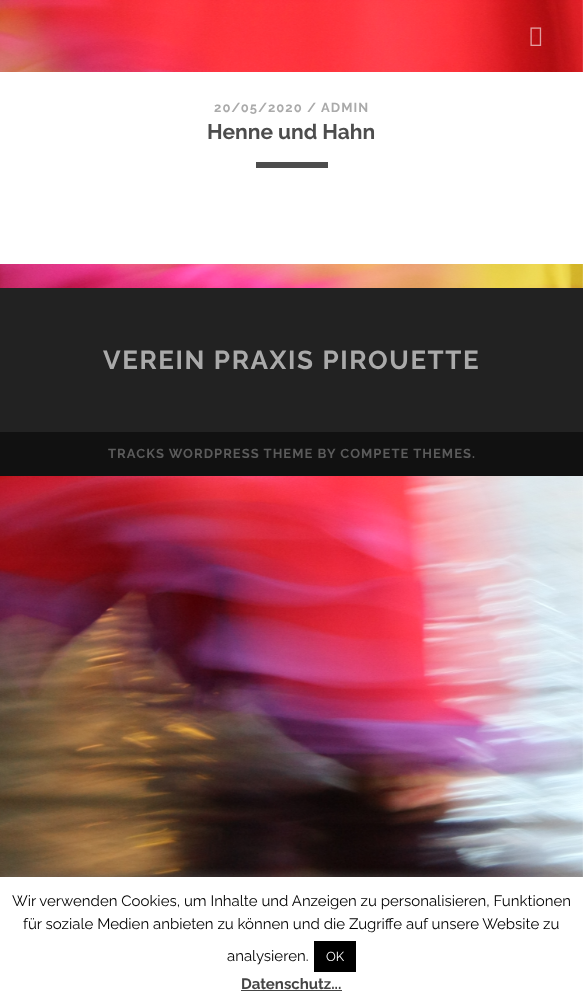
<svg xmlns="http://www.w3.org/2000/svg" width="583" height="1007">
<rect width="100%" height="100%" fill="#fff"/>
<image x="0" y="0" width="583" height="877" href="media/1.png"/>
<image x="530" y="27" width="12" height="19" href="media/2.png"/>
<rect y="72" width="583" height="192" fill="#fff"/>
<text x="214" y="112" style="font-family:Raleway;font-size:13px;font-weight:bold;letter-spacing:1.05px;fill:#aaa">20/05/2020 /</text>
<text x="321" y="112" style="font-family:Raleway;font-size:13px;font-weight:bold;letter-spacing:1.05px;fill:#aaa">ADMIN</text>
<text x="207" y="139" style="font-family:Raleway;font-size:21px;font-weight:bold;fill:#4d4d4d">Henne und Hahn</text>
<rect x="256" y="162" width="72" height="6" fill="#4d4d4d"/>
<rect y="288" width="583" height="144" fill="#222"/>
<text x="103" y="369" style="font-family:Raleway;font-size:26px;font-weight:bold;letter-spacing:1.6px;fill:#aaa">VEREIN PRAXIS PIROUETTE</text>
<rect y="432" width="583" height="44" fill="#111"/>
<text x="108" y="458" style="font-family:Raleway;font-size:13px;font-weight:bold;letter-spacing:1.05px;fill:#5b5b5b">TRACKS WORDPRESS THEME BY COMPETE THEMES.</text>
<rect y="876" width="583" height="130" fill="#acabab4d" filter="blur(5px)"/>
<rect y="877" width="583" height="130" fill="#fff"/>
<text x="12" y="906" style="font-family:Raleway;font-size:15px;fill:#000">Wir verwenden Cookies, um Inhalte und Anzeigen zu personalisieren, Funktionen</text>
<text x="23" y="929" style="font-family:Raleway;font-size:15px;fill:#000">für soziale Medien anbieten zu können und die Zugriffe auf unsere Website zu</text>
<text x="227" y="961" style="font-family:Raleway;font-size:15px;fill:#000">analysieren.</text>
<rect x="314" y="941" width="42" height="31" fill="#000"/>
<text x="326" y="961" style="font-family:Raleway;font-size:13px;fill:#fff">OK</text>
<text x="241" y="989" style="font-family:Raleway;font-size:15px;font-weight:bold;fill:#444">Datenschutz...</text>
<rect x="241" y="990" width="101" height="1" fill="#444"/>
</svg>
